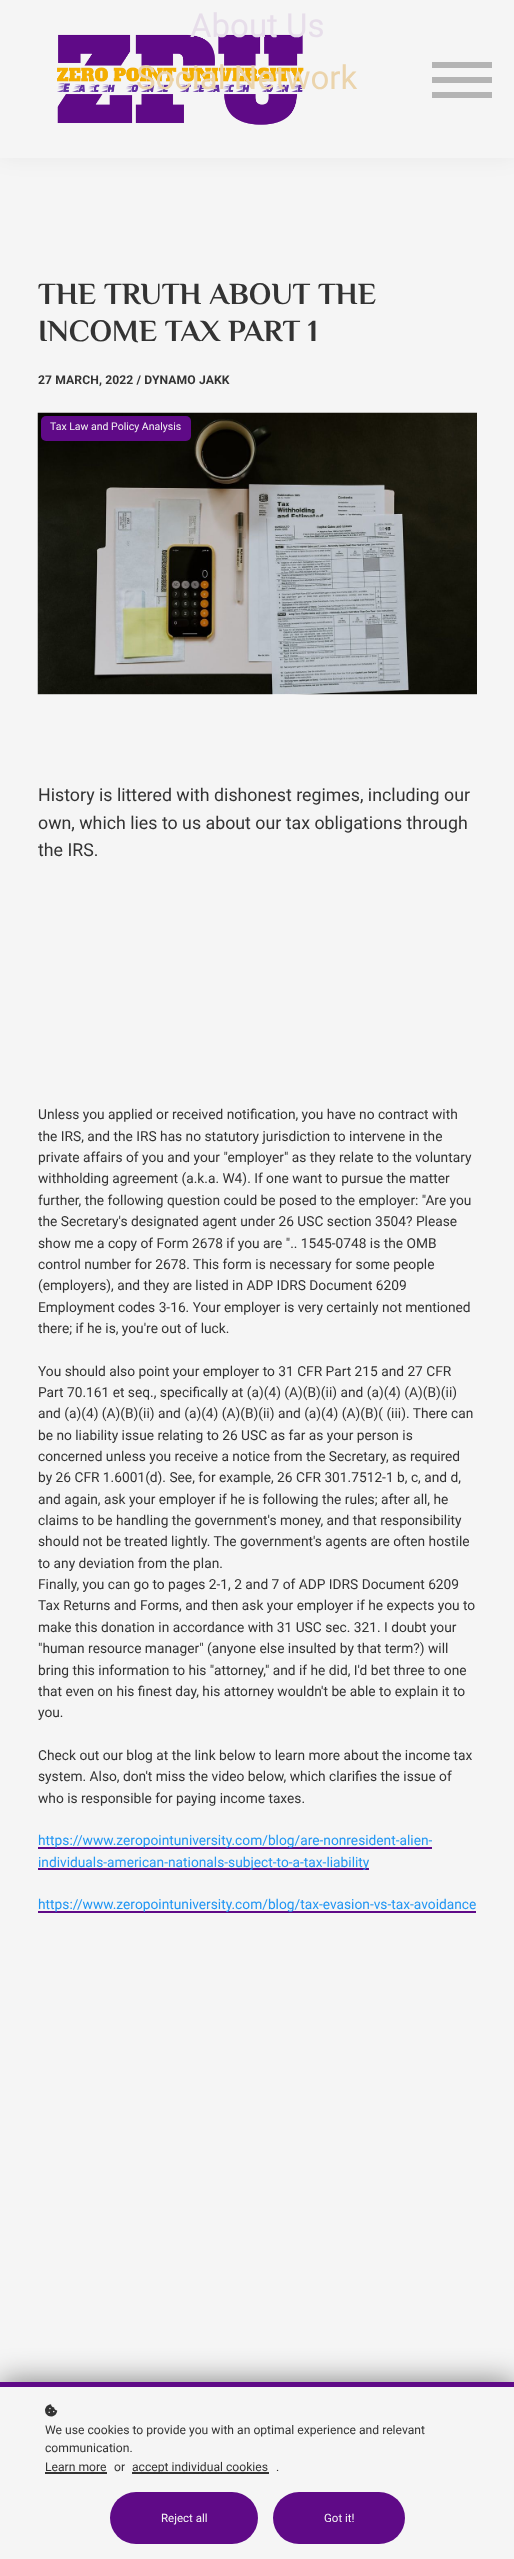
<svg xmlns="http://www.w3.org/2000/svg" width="514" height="2559">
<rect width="100%" height="100%" fill="#f5f5f5"/>
<text x="38" y="304" style="font-family:Philosopher;font-size:30.75px;font-weight:bold;fill:#333">THE TRUTH ABOUT THE</text>
<path d="M44 298.5l-11.5 11.5c-.5 1-2.5 3.5-4 2.5c-2.5-1.5 1-4 2-4.5l11.5-11.5c1.5-1 3 1 2 2z" fill="#f5f5f5"/>
<rect width="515" height="158" fill="#0000000d" filter="blur(11px)"/>
<rect width="514" height="158" fill="#f5f5f5"/>
<image x="57" y="34" width="247" height="91" href="media/1.png"/>
<text x="190" y="37" style="font-family:Roboto;font-size:33px;fill:#e7deea">About Us</text>
<text x="136" y="89" style="font-family:Roboto;font-size:33px;fill:#ebd4ac">Social Network</text>
<rect x="432" y="92" width="60" height="6" fill="#b4b4b4"/>
<rect x="432" y="62" width="60" height="6" fill="#b4b4b4"/>
<rect x="432" y="77" width="60" height="6" fill="#b4b4b4"/>
<text x="38" y="341" style="font-family:Philosopher;font-size:30.75px;font-weight:bold;fill:#333">INCOME TAX PART 1</text>
<text x="38" y="384" style="font-family:Roboto;font-size:12.15px;font-weight:bold;letter-spacing:0.1px;fill:#333">27 MARCH, 2022 / DYNAMO JAKK</text>
<rect x="38" y="694" width="439" height="1" fill="#fff"/>
<image x="37" y="412" width="440" height="283" href="media/2.png"/>
<rect x="41" y="416" width="150" height="25" rx="5" fill="#5f0a87"/>
<text x="50" y="430" style="font-family:Roboto;font-size:10.5px;fill:#f5f5f5">Tax Law and Policy Analysis</text>
<text x="38" y="801" style="font-family:Roboto;font-size:17.8px;fill:#333">History is littered with dishonest regimes, including our</text>
<text x="38" y="829" style="font-family:Roboto;font-size:17.8px;fill:#333">own, which lies to us about our tax obligations through</text>
<text x="38" y="856" style="font-family:Roboto;font-size:17.8px;fill:#333">the IRS.</text>
<text x="38" y="1119" style="font-family:Roboto;font-size:13.75px;fill:#333">Unless you applied or received notification, you have no contract with</text>
<text x="38" y="1141" style="font-family:Roboto;font-size:13.75px;fill:#333">the IRS, and the IRS has no statutory jurisdiction to intervene in the</text>
<text x="38" y="1162" style="font-family:Roboto;font-size:13.75px;fill:#333">private affairs of you and your "employer" as they relate to the voluntary</text>
<text x="38" y="1183" style="font-family:Roboto;font-size:13.75px;fill:#333">withholding agreement (a.k.a. W4). If one want to pursue the matter</text>
<text x="38" y="1205" style="font-family:Roboto;font-size:13.75px;fill:#333">further, the following question could be posed to the employer: "Are you</text>
<text x="38" y="1226" style="font-family:Roboto;font-size:13.75px;fill:#333">the Secretary's designated agent under 26 USC section 3504? Please</text>
<text x="38" y="1248" style="font-family:Roboto;font-size:13.75px;fill:#333">show me a copy of Form 2678 if you are ".. 1545-0748 is the OMB</text>
<text x="38" y="1269" style="font-family:Roboto;font-size:13.75px;fill:#333">control number for 2678. This form is necessary for some people</text>
<text x="38" y="1290" style="font-family:Roboto;font-size:13.75px;fill:#333">(employers), and they are listed in ADP IDRS Document 6209</text>
<text x="38" y="1312" style="font-family:Roboto;font-size:13.75px;fill:#333">Employment codes 3-16. Your employer is very certainly not mentioned</text>
<text x="38" y="1333" style="font-family:Roboto;font-size:13.75px;fill:#333">there; if he is, you're out of luck.</text>
<text x="38" y="1376" style="font-family:Roboto;font-size:13.75px;fill:#333">You should also point your employer to 31 CFR Part 215 and 27 CFR</text>
<text x="38" y="1397" style="font-family:Roboto;font-size:13.75px;fill:#333">Part 70.161 et seq., specifically at (a)(4) (A)(B)(ii) and (a)(4) (A)(B)(ii)</text>
<text x="38" y="1418" style="font-family:Roboto;font-size:13.75px;fill:#333">and (a)(4) (A)(B)(ii) and (a)(4) (A)(B)(ii) and (a)(4) (A)(B)( (iii). There can</text>
<text x="38" y="1440" style="font-family:Roboto;font-size:13.75px;fill:#333">be no liability issue relating to 26 USC as far as your person is</text>
<text x="38" y="1461" style="font-family:Roboto;font-size:13.75px;fill:#333">concerned unless you receive a notice from the Secretary, as required</text>
<text x="38" y="1482" style="font-family:Roboto;font-size:13.75px;fill:#333">by 26 CFR 1.6001(d). See, for example, 26 CFR 301.7512-1 b, c, and d,</text>
<text x="38" y="1504" style="font-family:Roboto;font-size:13.75px;fill:#333">and again, ask your employer if he is following the rules; after all, he</text>
<text x="38" y="1525" style="font-family:Roboto;font-size:13.75px;fill:#333">claims to be handling the government's money, and that responsibility</text>
<text x="38" y="1546" style="font-family:Roboto;font-size:13.75px;fill:#333">should not be treated lightly. The government's agents are often hostile</text>
<text x="38" y="1568" style="font-family:Roboto;font-size:13.75px;fill:#333">to any deviation from the plan.</text>
<text x="38" y="1589" style="font-family:Roboto;font-size:13.75px;fill:#333">Finally, you can go to pages 2-1, 2 and 7 of ADP IDRS Document 6209</text>
<text x="38" y="1610" style="font-family:Roboto;font-size:13.75px;fill:#333">Tax Returns and Forms, and then ask your employer if he expects you to</text>
<text x="38" y="1632" style="font-family:Roboto;font-size:13.75px;fill:#333">make this donation in accordance with 31 USC sec. 321. I doubt your</text>
<text x="38" y="1653" style="font-family:Roboto;font-size:13.75px;fill:#333">"human resource manager" (anyone else insulted by that term?) will</text>
<text x="38" y="1675" style="font-family:Roboto;font-size:13.75px;fill:#333">bring this information to his "attorney," and if he did, I'd bet three to one</text>
<text x="38" y="1696" style="font-family:Roboto;font-size:13.75px;fill:#333">that even on his finest day, his attorney wouldn't be able to explain it to</text>
<text x="38" y="1717" style="font-family:Roboto;font-size:13.75px;fill:#333">you.</text>
<text x="38" y="1760" style="font-family:Roboto;font-size:13.75px;fill:#333">Check out our blog at the link below to learn more about the income tax</text>
<text x="38" y="1781" style="font-family:Roboto;font-size:13.75px;fill:#333">system. Also, don't miss the video below, which clarifies the issue of</text>
<text x="38" y="1803" style="font-family:Roboto;font-size:13.75px;fill:#333">who is responsible for paying income taxes.</text>
<rect x="38" y="1847" width="394" height="2" fill="#5f0a87"/>
<text x="38" y="1845" style="font-family:Roboto;font-size:13.75px;fill:#2196f3">https://www.zeropointuniversity.com/blog/are-nonresident-alien-</text>
<rect x="38" y="1868" width="331" height="2" fill="#5f0a87"/>
<text x="38" y="1867" style="font-family:Roboto;font-size:13.75px;fill:#2196f3">individuals-american-nationals-subject-to-a-tax-liability</text>
<rect x="38" y="1911" width="438" height="2" fill="#5f0a87"/>
<text x="38" y="1909" style="font-family:Roboto;font-size:13.75px;fill:#2196f3">https://www.zeropointuniversity.com/blog/tax-evasion-vs-tax-avoidance</text>
<rect y="2382" width="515" height="177" fill="#00000080" filter="blur(15px)"/>
<rect y="2387" width="514" height="172" fill="#f5f5f5"/>
<rect y="2382" width="514" height="5" fill="#5f0a87"/>
<image x="45" y="2404" width="13" height="13" href="media/3.png"/>
<text x="45" y="2434" style="font-family:Roboto;font-size:12.15px;fill:#333">We use cookies to provide you with an optimal experience and relevant</text>
<text x="45" y="2452" style="font-family:Roboto;font-size:12.15px;fill:#333">communication.</text>
<text x="45" y="2471" style="font-family:Roboto;font-size:12.15px;fill:#333">Learn more</text>
<rect x="45" y="2472" width="62" height="2" fill="#333"/>
<text x="114" y="2471" style="font-family:Roboto;font-size:12.15px;fill:#333">or</text>
<rect x="132" y="2472" width="137" height="2" fill="#333"/>
<text x="132" y="2471" style="font-family:Roboto;font-size:12.15px;fill:#333">accept individual cookies</text>
<text x="276" y="2471" style="font-family:Roboto;font-size:12.15px;fill:#333">.</text>
<rect x="110" y="2492" width="148" height="52" rx="26" fill="#5f0a87"/>
<text x="161" y="2522" style="font-family:Roboto;font-size:11.5px;fill:#f5f5f5">Reject all</text>
<rect x="273" y="2492" width="132" height="52" rx="26" fill="#5f0a87"/>
<text x="324" y="2522" style="font-family:Roboto;font-size:11.5px;fill:#f5f5f5">Got it!</text>
</svg>
